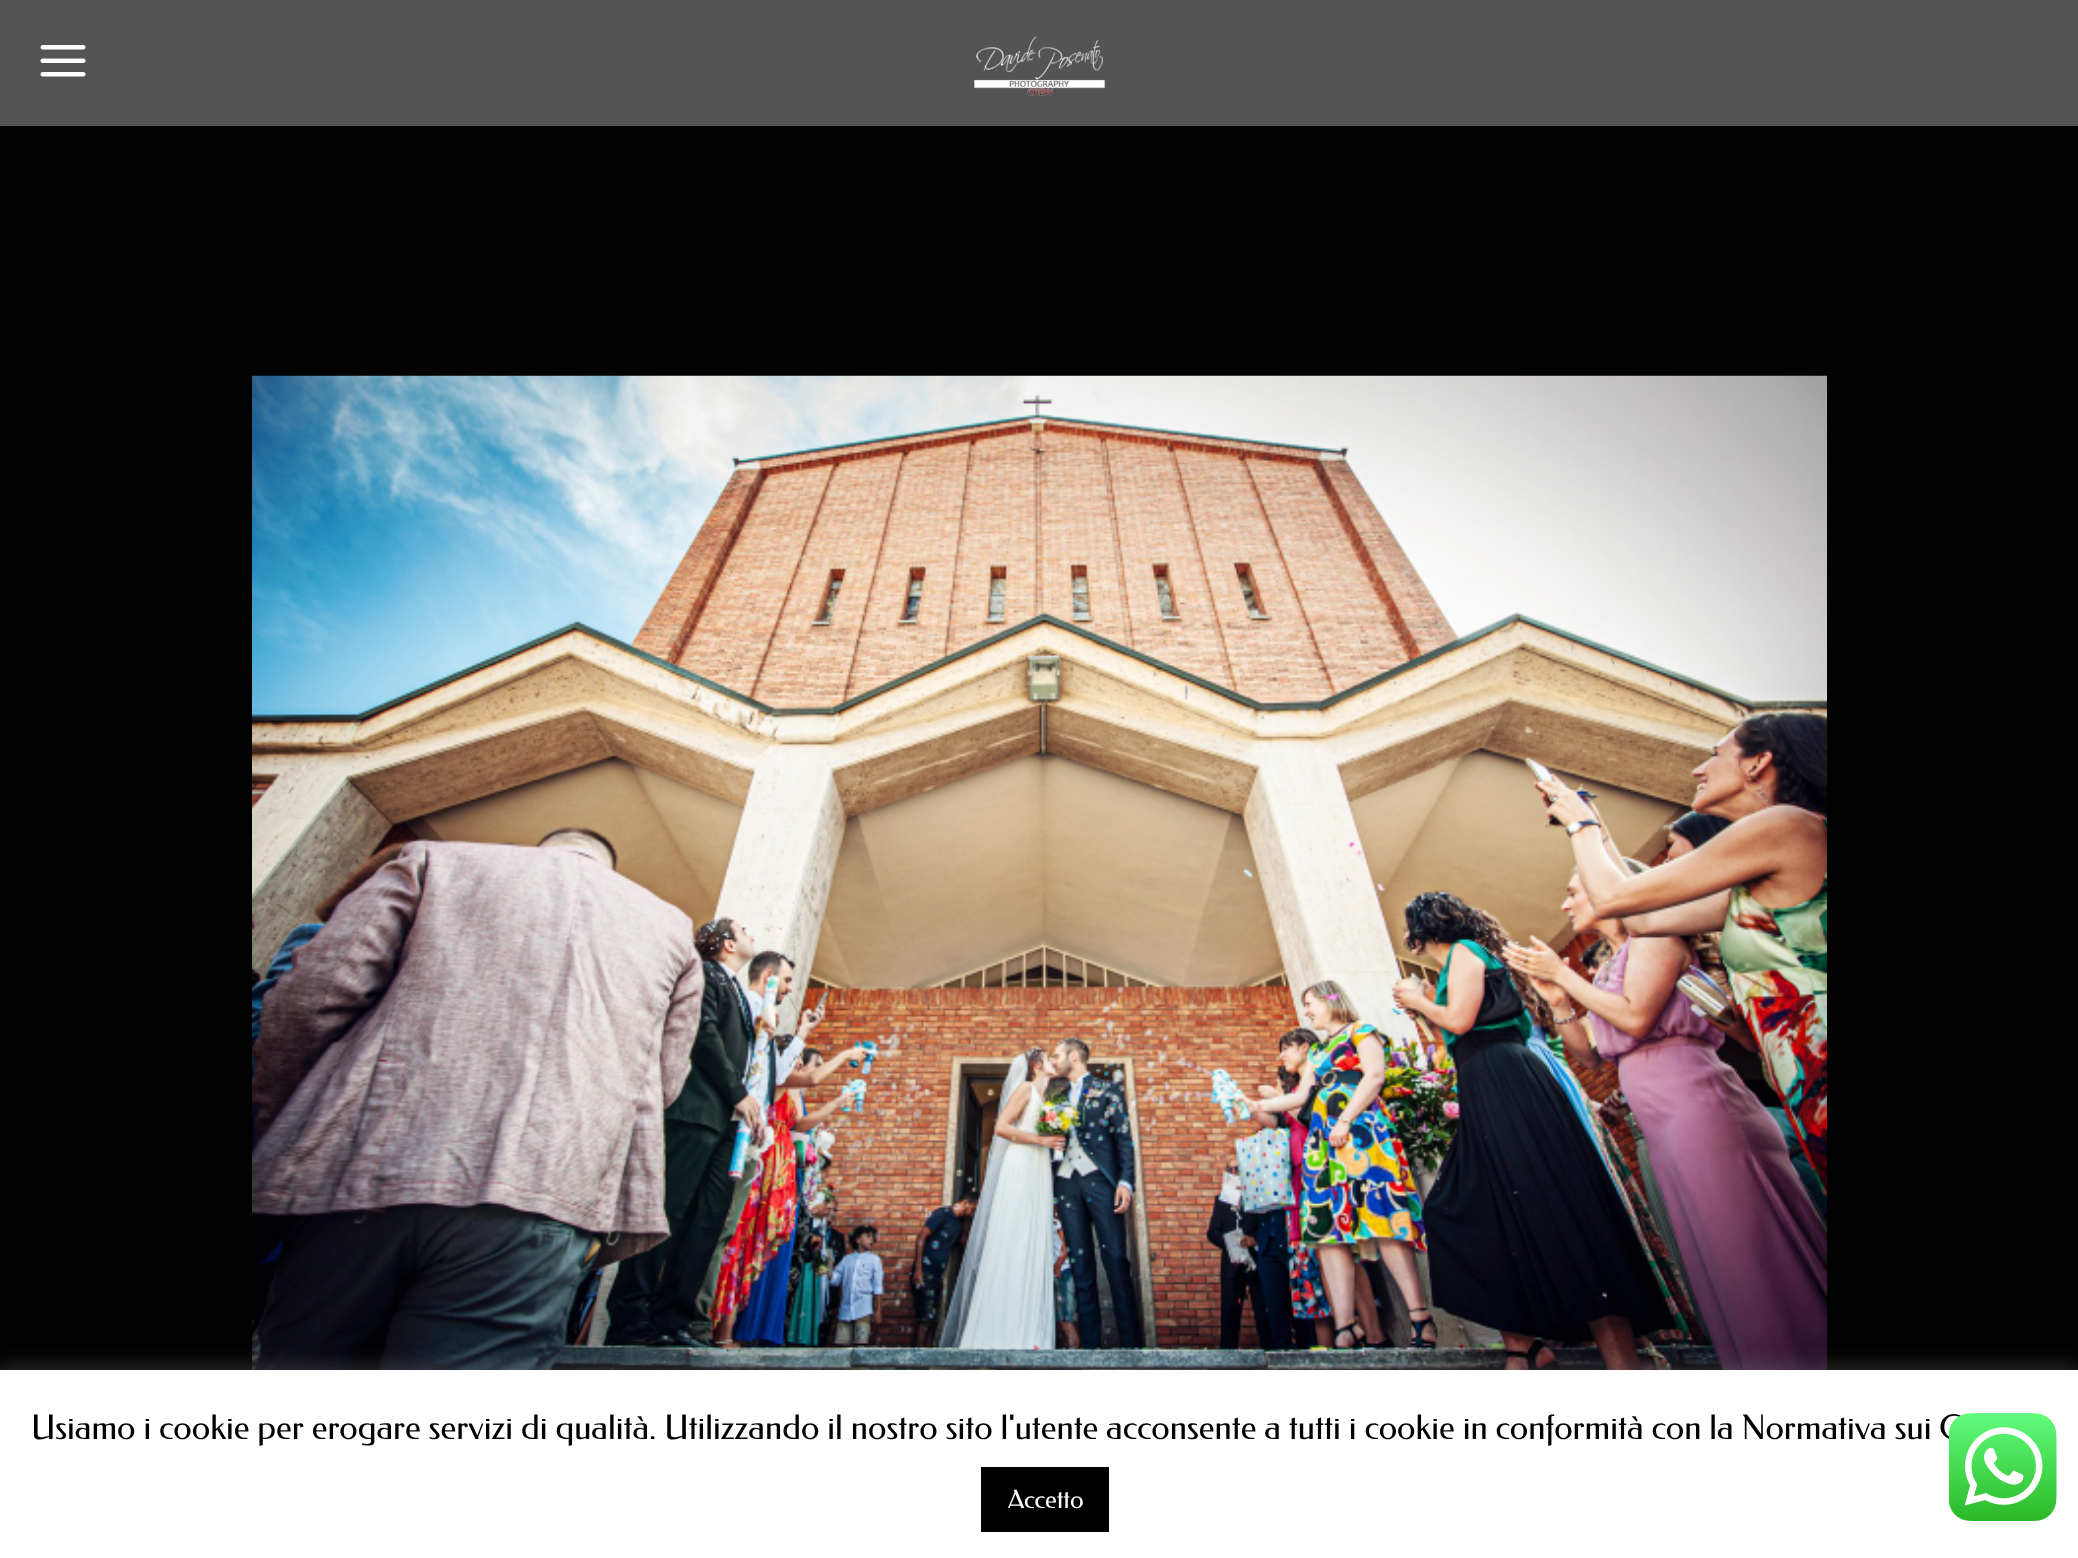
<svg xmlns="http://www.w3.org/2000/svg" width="2078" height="1558">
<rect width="100%" height="100%" fill="#020202"/>
<rect width="2078" height="126" fill="#545454"/>
<image x="974" y="35" width="131" height="61" href="media/1.png"/>
<image x="40" y="45" width="46" height="32" href="media/2.png"/>
<image x="252" y="375" width="1575" height="995" href="media/3.png"/>
<rect y="1368" width="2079" height="189" fill="#acabab4d" filter="blur(11px)"/>
<rect y="1370" width="2078" height="188" fill="#fff"/>
<text x="31" y="1439" style="font-family:Federo;font-size:33.75px;fill:#000">Usiamo i cookie per erogare servizi di qualità. Utilizzando il nostro sito l'utente acconsente a tutti i cookie in conformità con la Normativa sui C</text>
<rect x="981" y="1467" width="128" height="65" fill="#000"/>
<text x="1008" y="1508" style="font-family:Federo;font-size:25px;fill:#fff">Accetto</text>
<image x="1949" y="1413" width="108" height="108" href="media/4.png"/>
</svg>
